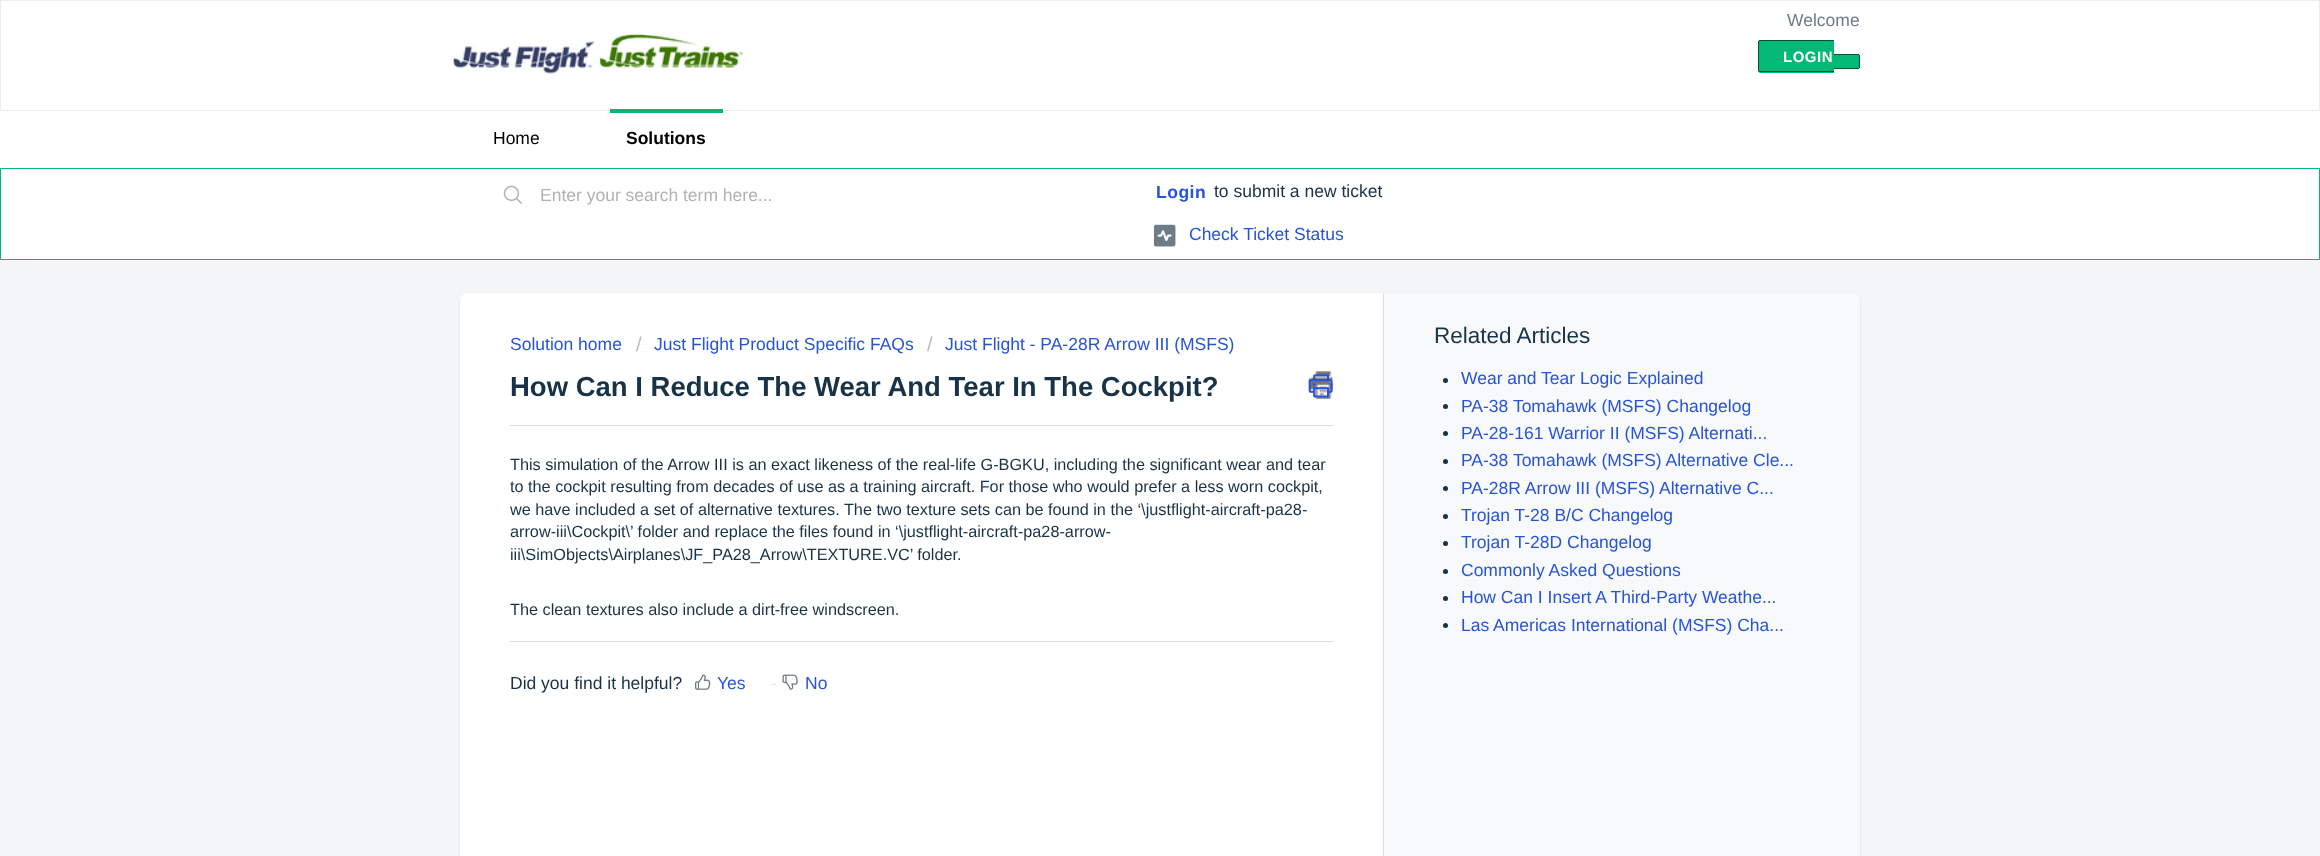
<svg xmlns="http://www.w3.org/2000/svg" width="2320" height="856">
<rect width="100%" height="100%" fill="#f3f5f7"/>
<rect x="0.5" y="0.5" width="2319" height="110" fill="#fff" stroke="#ebeef0"/>
<image x="453" y="33" width="290" height="41" href="media/1.png"/>
<text x="1787" y="26" style="font-family:Liberation Sans;font-size:17.5px;fill:#6f7c87">Welcome</text>
<path d="M1760.5 40h73.5v33h-73.5c-1.5 0-2.5-1-2.5-2.5v-28c0-1.5 1-2.5 2.5-2.5z" fill="#02b875"/>
<text x="1783" y="62" style="font-family:Liberation Sans;font-size:15px;font-weight:bold;letter-spacing:0.5px;fill:#fff">LOGIN</text>
<rect x="1759" y="40" width="75" height="1" fill="#015335"/>
<rect x="1759" y="71" width="75" height="1" fill="#015335"/>
<rect x="1758" y="41" width="1" height="30" fill="#015335"/>
<path d="M1834 54h23.5c1.5 0 2.5 1 2.5 2.5v10c0 1.5-1 2.5-2.5 2.5h-23.5z" fill="#02b875"/>
<rect x="1834" y="54" width="25" height="1" fill="#015335"/>
<rect x="1859" y="55" width="1" height="13" fill="#015335"/>
<rect x="1834" y="68" width="25" height="1" fill="#015335"/>
<rect y="111" width="2320" height="57" fill="#fff"/>
<text x="493" y="144" style="font-family:Liberation Sans;font-size:17.5px;fill:#000">Home</text>
<rect x="610" y="109" width="113" height="4" fill="#02b875"/>
<text x="626" y="144" style="font-family:Liberation Sans;font-size:17.5px;font-weight:bold;fill:#000">Solutions</text>
<rect x="0.5" y="168.5" width="2319" height="91" fill="#fff" stroke="#02b875"/>
<image x="503" y="185" width="19" height="19" href="media/2.png"/>
<text x="540" y="201" style="font-family:Liberation Sans;font-size:17.5px;fill:#b2b2b2">Enter your search term here...</text>
<text x="1156" y="198" style="font-family:Liberation Sans;font-size:17.5px;font-weight:bold;letter-spacing:0.5px;fill:#2753d7">Login</text>
<text x="1214" y="197" style="font-family:Liberation Sans;font-size:17.5px;fill:#183247">to submit a new ticket</text>
<image x="1154" y="224" width="22" height="23" href="media/3.png"/>
<text x="1189" y="240" style="font-family:Liberation Sans;font-size:17.5px;fill:#2753d7">Check Ticket Status</text>
<rect x="460" y="294" width="1400" height="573" rx="8" fill="#3f3f4426" filter="blur(1px)"/>
<rect x="460" y="293" width="1400" height="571" rx="8" fill="#f8f9fa"/>
<path d="M468 293h916v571h-916c-4.5 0-8-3.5-8-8v-555c0-4.5 3.5-8 8-8z" fill="#fff"/>
<rect x="1383" y="293" width="1" height="563" fill="#dadfe3"/>
<text x="510" y="350" style="font-family:Liberation Sans;font-size:17.5px;fill:#2753d7">Solution home</text>
<text x="636" y="351" style="font-family:Liberation Sans;font-size:20px;fill:#bbb">/</text>
<text x="654" y="350" style="font-family:Liberation Sans;font-size:17.5px;fill:#2753d7">Just Flight Product Specific FAQs</text>
<text x="927" y="351" style="font-family:Liberation Sans;font-size:20px;fill:#bbb">/</text>
<text x="945" y="350" style="font-family:Liberation Sans;font-size:17.5px;fill:#2753d7">Just Flight - PA-28R Arrow III (MSFS)</text>
<text x="510" y="396" style="font-family:Liberation Sans;font-size:27.5px;font-weight:bold;fill:#183247">How Can I Reduce The Wear And Tear In The Cockpit?</text>
<image x="1308" y="371" width="25" height="28" href="media/4.png"/>
<image x="1308" y="374" width="25" height="24" href="media/5.png"/>
<rect x="510" y="425" width="823" height="1" fill="#dcdcdc"/>
<text x="510" y="470" style="font-family:Liberation Sans;font-size:16.25px;fill:#183247">This simulation of the Arrow III is an exact likeness of the real-life G-BGKU, including the significant wear and tear</text>
<text x="510" y="492" style="font-family:Liberation Sans;font-size:16.25px;fill:#183247">to the cockpit resulting from decades of use as a training aircraft. For those who would prefer a less worn cockpit,</text>
<text x="510" y="515" style="font-family:Liberation Sans;font-size:16.25px;fill:#183247">we have included a set of alternative textures. The two texture sets can be found in the ‘\justflight-aircraft-pa28-</text>
<text x="510" y="537" style="font-family:Liberation Sans;font-size:16.25px;fill:#183247">arrow-iii\Cockpit\’ folder and replace the files found in ‘\justflight-aircraft-pa28-arrow-</text>
<text x="510" y="560" style="font-family:Liberation Sans;font-size:16.25px;fill:#183247">iii\SimObjects\Airplanes\JF_PA28_Arrow\TEXTURE.VC’ folder.</text>
<text x="510" y="615" style="font-family:Liberation Sans;font-size:16.25px;fill:#183247">The clean textures also include a dirt-free windscreen.</text>
<rect x="510" y="641" width="823" height="1" fill="#dcdcdc"/>
<text x="510" y="689" style="font-family:Liberation Sans;font-size:17.5px;fill:#183247">Did you find it helpful?</text>
<image x="695" y="674" width="16" height="16" href="media/6.png"/>
<text x="717" y="689" style="font-family:Liberation Sans;font-size:17.5px;fill:#2753d7">Yes</text>
<text x="771" y="689" style="font-family:Liberation Sans;font-size:17.5px;fill:#e5e5e5">-</text>
<image x="782" y="674" width="16" height="16" href="media/7.png"/>
<text x="805" y="689" style="font-family:Liberation Sans;font-size:17.5px;fill:#2753d7">No</text>
<path d="M1384 293h468c4.5 0 8 3.5 8 8v349c0 4.5-3.5 8-8 8h-468z" fill="#f8f9fa"/>
<text x="1434" y="343" style="font-family:Liberation Sans;font-size:22.5px;fill:#183247">Related Articles</text>
<circle cx="1445.5" cy="380.5" r="2.5" fill="#183247"/>
<text x="1461" y="384" style="font-family:Liberation Sans;font-size:17.5px;fill:#2753d7">Wear and Tear Logic Explained</text>
<circle cx="1445.5" cy="406.5" r="2.5" fill="#183247"/>
<text x="1461" y="412" style="font-family:Liberation Sans;font-size:17.5px;fill:#2753d7">PA-38 Tomahawk (MSFS) Changelog</text>
<circle cx="1445.5" cy="433.5" r="2.5" fill="#183247"/>
<text x="1461" y="439" style="font-family:Liberation Sans;font-size:17.5px;fill:#2753d7">PA-28-161 Warrior II (MSFS) Alternati...</text>
<circle cx="1445.5" cy="461.5" r="2.5" fill="#183247"/>
<text x="1461" y="466" style="font-family:Liberation Sans;font-size:17.5px;fill:#2753d7">PA-38 Tomahawk (MSFS) Alternative Cle...</text>
<circle cx="1445.5" cy="488.5" r="2.5" fill="#183247"/>
<text x="1461" y="494" style="font-family:Liberation Sans;font-size:17.5px;fill:#2753d7">PA-28R Arrow III (MSFS) Alternative C...</text>
<circle cx="1445.5" cy="516.5" r="2.5" fill="#183247"/>
<text x="1461" y="521" style="font-family:Liberation Sans;font-size:17.5px;fill:#2753d7">Trojan T-28 B/C Changelog</text>
<circle cx="1445.5" cy="543.5" r="2.5" fill="#183247"/>
<text x="1461" y="548" style="font-family:Liberation Sans;font-size:17.5px;fill:#2753d7">Trojan T-28D Changelog</text>
<circle cx="1445.5" cy="571.5" r="2.5" fill="#183247"/>
<text x="1461" y="576" style="font-family:Liberation Sans;font-size:17.5px;fill:#2753d7">Commonly Asked Questions</text>
<circle cx="1445.5" cy="598.5" r="2.5" fill="#183247"/>
<text x="1461" y="603" style="font-family:Liberation Sans;font-size:17.5px;fill:#2753d7">How Can I Insert A Third-Party Weathe...</text>
<circle cx="1445.5" cy="625.5" r="2.5" fill="#183247"/>
<text x="1461" y="631" style="font-family:Liberation Sans;font-size:17.5px;fill:#2753d7">Las Americas International (MSFS) Cha...</text>
</svg>
